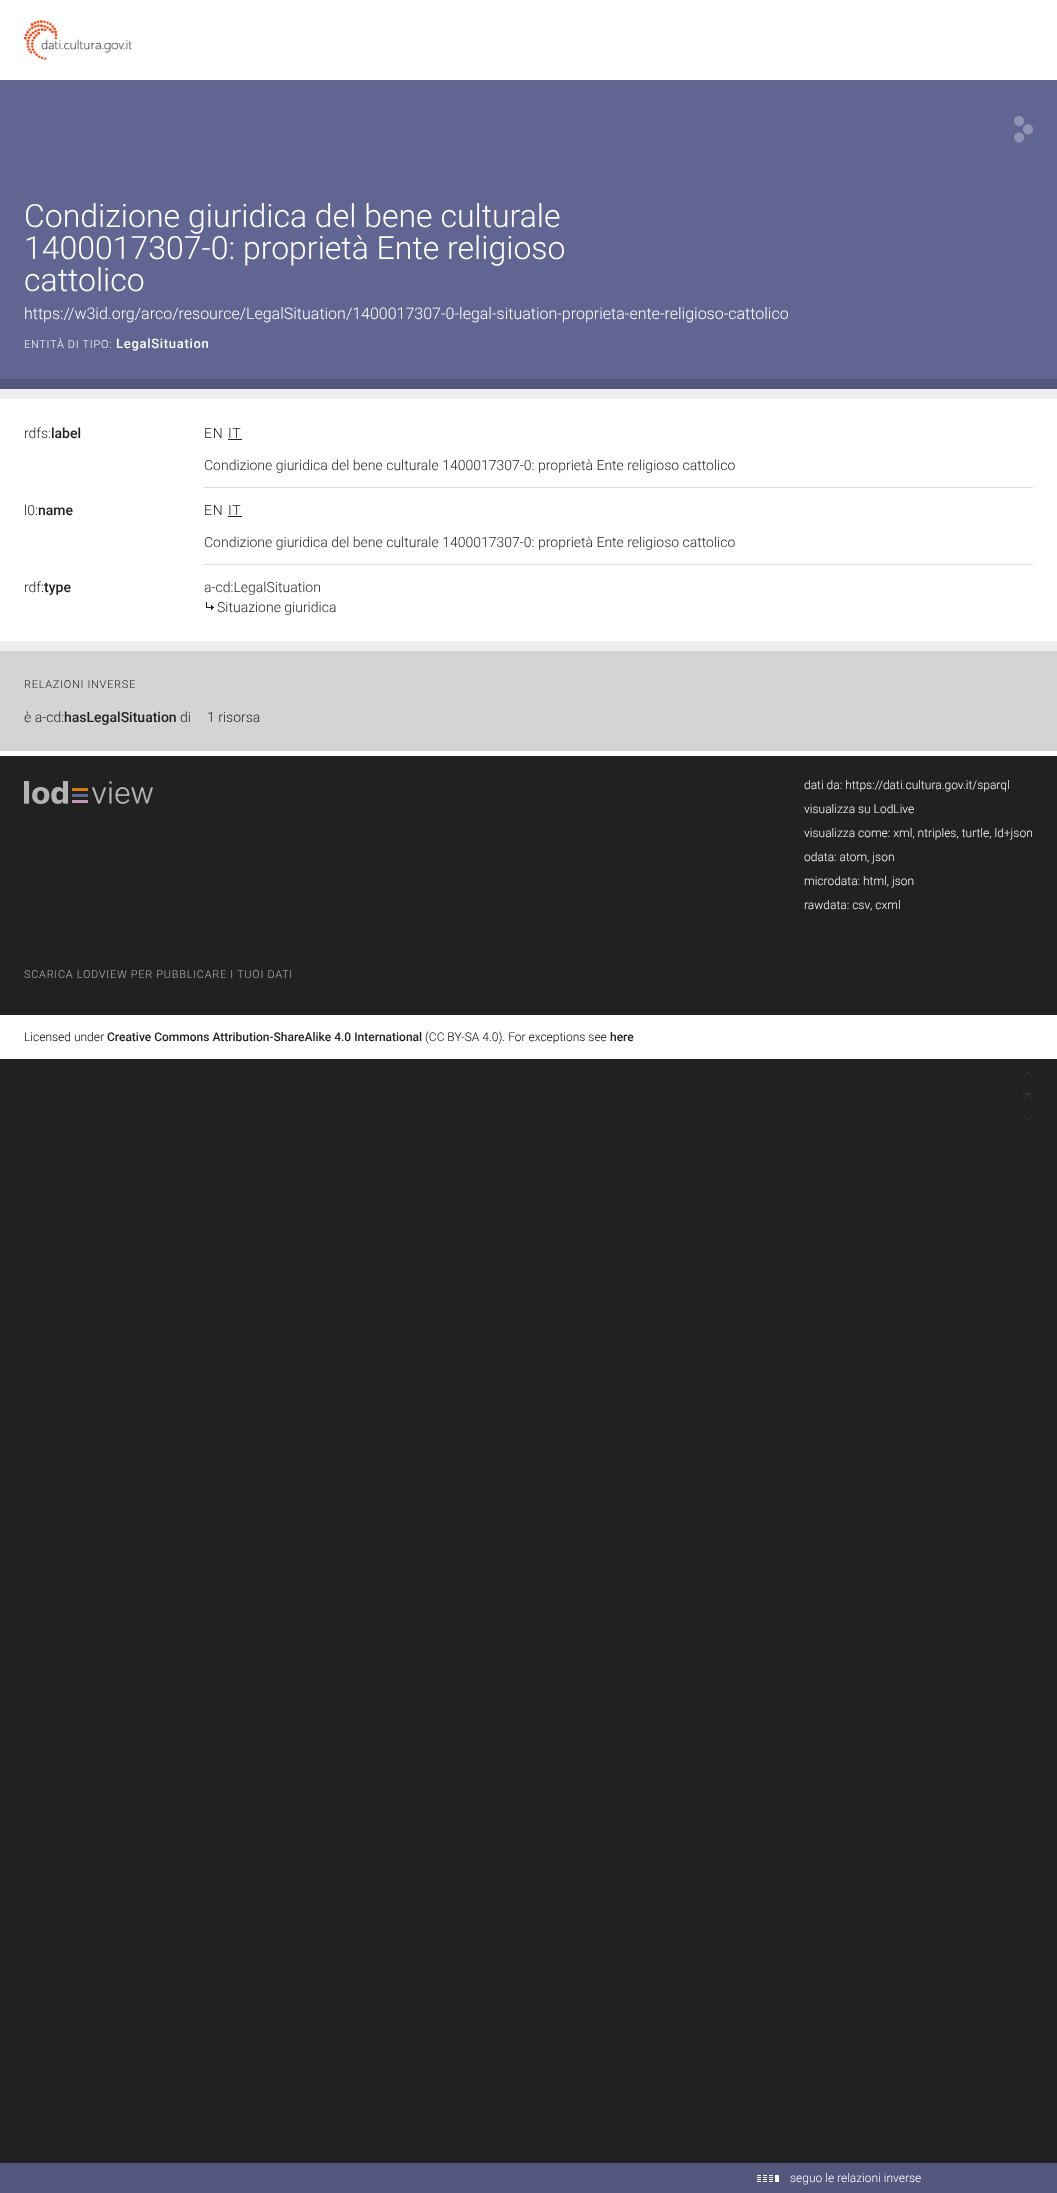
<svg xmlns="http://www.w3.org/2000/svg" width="1057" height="2193">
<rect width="100%" height="100%" fill="#212121"/>
<rect width="1057" height="80" fill="#fff"/>
<image x="24" y="20" width="108" height="40" href="media/1.png"/>
<rect y="80" width="1057" height="299" fill="#606592"/>
<text x="24" y="227" style="font-family:Roboto;font-size:32px;font-weight:300;fill:#fff">Condizione giuridica del bene culturale</text>
<text x="24" y="259" style="font-family:Roboto;font-size:32px;font-weight:300;fill:#fff">1400017307-0: proprietà Ente religioso</text>
<text x="24" y="291" style="font-family:Roboto;font-size:32px;font-weight:300;fill:#fff">cattolico</text>
<image x="1014" y="116" width="19" height="27" href="media/2.png"/>
<text x="24" y="319" style="font-family:Roboto;font-size:16px;font-weight:300;fill:#fff">https://w3id.org/arco/resource/LegalSituation/1400017307-0-legal-situation-proprieta-ente-religioso-cattolico</text>
<text x="24" y="348" style="font-family:Roboto;font-size:11px;font-weight:300;letter-spacing:0.7px;fill:#fff">ENTITÀ DI TIPO:</text>
<text x="116" y="348" style="font-family:Roboto;font-size:13px;font-weight:500;letter-spacing:0.7px;fill:#fff">LegalSituation</text>
<rect y="379" width="1057" height="10" fill="#53577e"/>
<rect y="389" width="1057" height="10" fill="#eee"/>
<rect y="399" width="1057" height="242" fill="#fff"/>
<text x="24" y="438" style="font-family:Roboto;font-size:14px;font-weight:300;fill:#222">rdfs:</text>
<text x="51" y="438" style="font-family:Roboto;font-size:14px;font-weight:500;fill:#222">label</text>
<rect x="204" y="487" width="829" height="1" fill="#dbdbdb"/>
<text x="204" y="438" style="font-family:Roboto;font-size:14px;font-weight:300;letter-spacing:0.7px;fill:#222">EN</text>
<text x="228" y="438" style="font-family:Roboto;font-size:14px;font-weight:300;letter-spacing:0.7px;fill:#222">IT</text>
<rect x="228" y="439" width="14" height="1" fill="#212121"/>
<text x="204" y="470" style="font-family:Roboto;font-size:14px;font-weight:300;fill:#222">Condizione giuridica del bene culturale 1400017307-0: proprietà Ente religioso cattolico</text>
<text x="24" y="515" style="font-family:Roboto;font-size:14px;font-weight:300;fill:#222">l0:</text>
<text x="38" y="515" style="font-family:Roboto;font-size:14px;font-weight:500;fill:#222">name</text>
<rect x="204" y="564" width="829" height="1" fill="#dbdbdb"/>
<text x="204" y="515" style="font-family:Roboto;font-size:14px;font-weight:300;letter-spacing:0.7px;fill:#222">EN</text>
<text x="228" y="515" style="font-family:Roboto;font-size:14px;font-weight:300;letter-spacing:0.7px;fill:#222">IT</text>
<rect x="228" y="516" width="14" height="1" fill="#212121"/>
<text x="204" y="547" style="font-family:Roboto;font-size:14px;font-weight:300;fill:#222">Condizione giuridica del bene culturale 1400017307-0: proprietà Ente religioso cattolico</text>
<text x="24" y="592" style="font-family:Roboto;font-size:14px;font-weight:300;fill:#222">rdf:</text>
<text x="44" y="592" style="font-family:Roboto;font-size:14px;font-weight:500;fill:#222">type</text>
<text x="204" y="592" style="font-family:Roboto;font-size:14px;font-weight:300;fill:#222">a-cd:LegalSituation</text>
<image x="206" y="602" width="8" height="8" href="media/3.png"/>
<text x="217" y="612" style="font-family:Roboto;font-size:14px;font-weight:300;fill:#222">Situazione giuridica</text>
<rect y="641" width="1057" height="10" fill="#eee"/>
<rect y="651" width="1057" height="100" fill="#d4d4d4"/>
<text x="24" y="688" style="font-family:Roboto;font-size:11px;font-weight:300;letter-spacing:0.7px;fill:#222">RELAZIONI INVERSE</text>
<text x="24" y="722" style="font-family:Roboto;font-size:14px;font-weight:300;fill:#222">è a-cd:</text>
<text x="64" y="722" style="font-family:Roboto;font-size:14px;font-weight:500;fill:#222">hasLegalSituation</text>
<text x="180" y="722" style="font-family:Roboto;font-size:14px;font-weight:300;fill:#222">di</text>
<text x="207" y="722" style="font-family:Roboto;font-size:14px;font-weight:300;fill:#222">1 risorsa</text>
<rect y="751" width="1057" height="5" fill="#fafafa"/>
<text x="804" y="789" style="font-family:Roboto;font-size:12px;font-weight:300;fill:#fff">dati da: https://dati.cultura.gov.it/sparql</text>
<text x="804" y="813" style="font-family:Roboto;font-size:12px;font-weight:300;fill:#fff">visualizza su LodLive</text>
<text x="804" y="837" style="font-family:Roboto;font-size:12px;font-weight:300;fill:#fff">visualizza come: xml, ntriples, turtle, ld+json</text>
<text x="804" y="861" style="font-family:Roboto;font-size:12px;font-weight:300;fill:#fff">odata: atom, json</text>
<text x="804" y="885" style="font-family:Roboto;font-size:12px;font-weight:300;fill:#fff">microdata: html, json</text>
<text x="804" y="909" style="font-family:Roboto;font-size:12px;font-weight:300;fill:#fff">rawdata: csv</text>
<text x="870" y="909" style="font-family:Roboto;font-size:12px;font-weight:300;fill:#fff">, cxml</text>
<image x="24" y="781" width="129" height="23" href="media/4.png"/>
<text x="24" y="978" style="font-family:Roboto;font-size:11px;font-weight:300;letter-spacing:0.7px;fill:#b4b4b4">SCARICA LODVIEW PER PUBBLICARE I TUOI DATI</text>
<rect y="1015" width="1057" height="44" fill="#fff"/>
<text x="24" y="1041" style="font-family:Roboto;font-size:12px;font-weight:300;fill:#000">Licensed under</text>
<text x="107" y="1041" style="font-family:Roboto;font-size:12px;font-weight:500;fill:#222">Creative Commons Attribution-ShareAlike 4.0 International</text>
<text x="425" y="1041" style="font-family:Roboto;font-size:12px;font-weight:300;fill:#000">(CC BY-SA 4.0). For exceptions see</text>
<text x="610" y="1041" style="font-family:Roboto;font-size:12px;font-weight:500;fill:#222">here</text>
<image x="1022" y="1072" width="11" height="6" href="media/5.png"/>
<image x="1022" y="1093" width="11" height="7" href="media/6.png"/>
<image x="1022" y="1115" width="11" height="6" href="media/7.png"/>
<rect y="2163" width="1057" height="30" fill="#53577e"/>
<image x="757" y="2175" width="22" height="7" href="media/8.png"/>
<text x="790" y="2182" style="font-family:Roboto;font-size:12px;font-weight:300;fill:#fff">seguo le relazioni inverse</text>
</svg>
